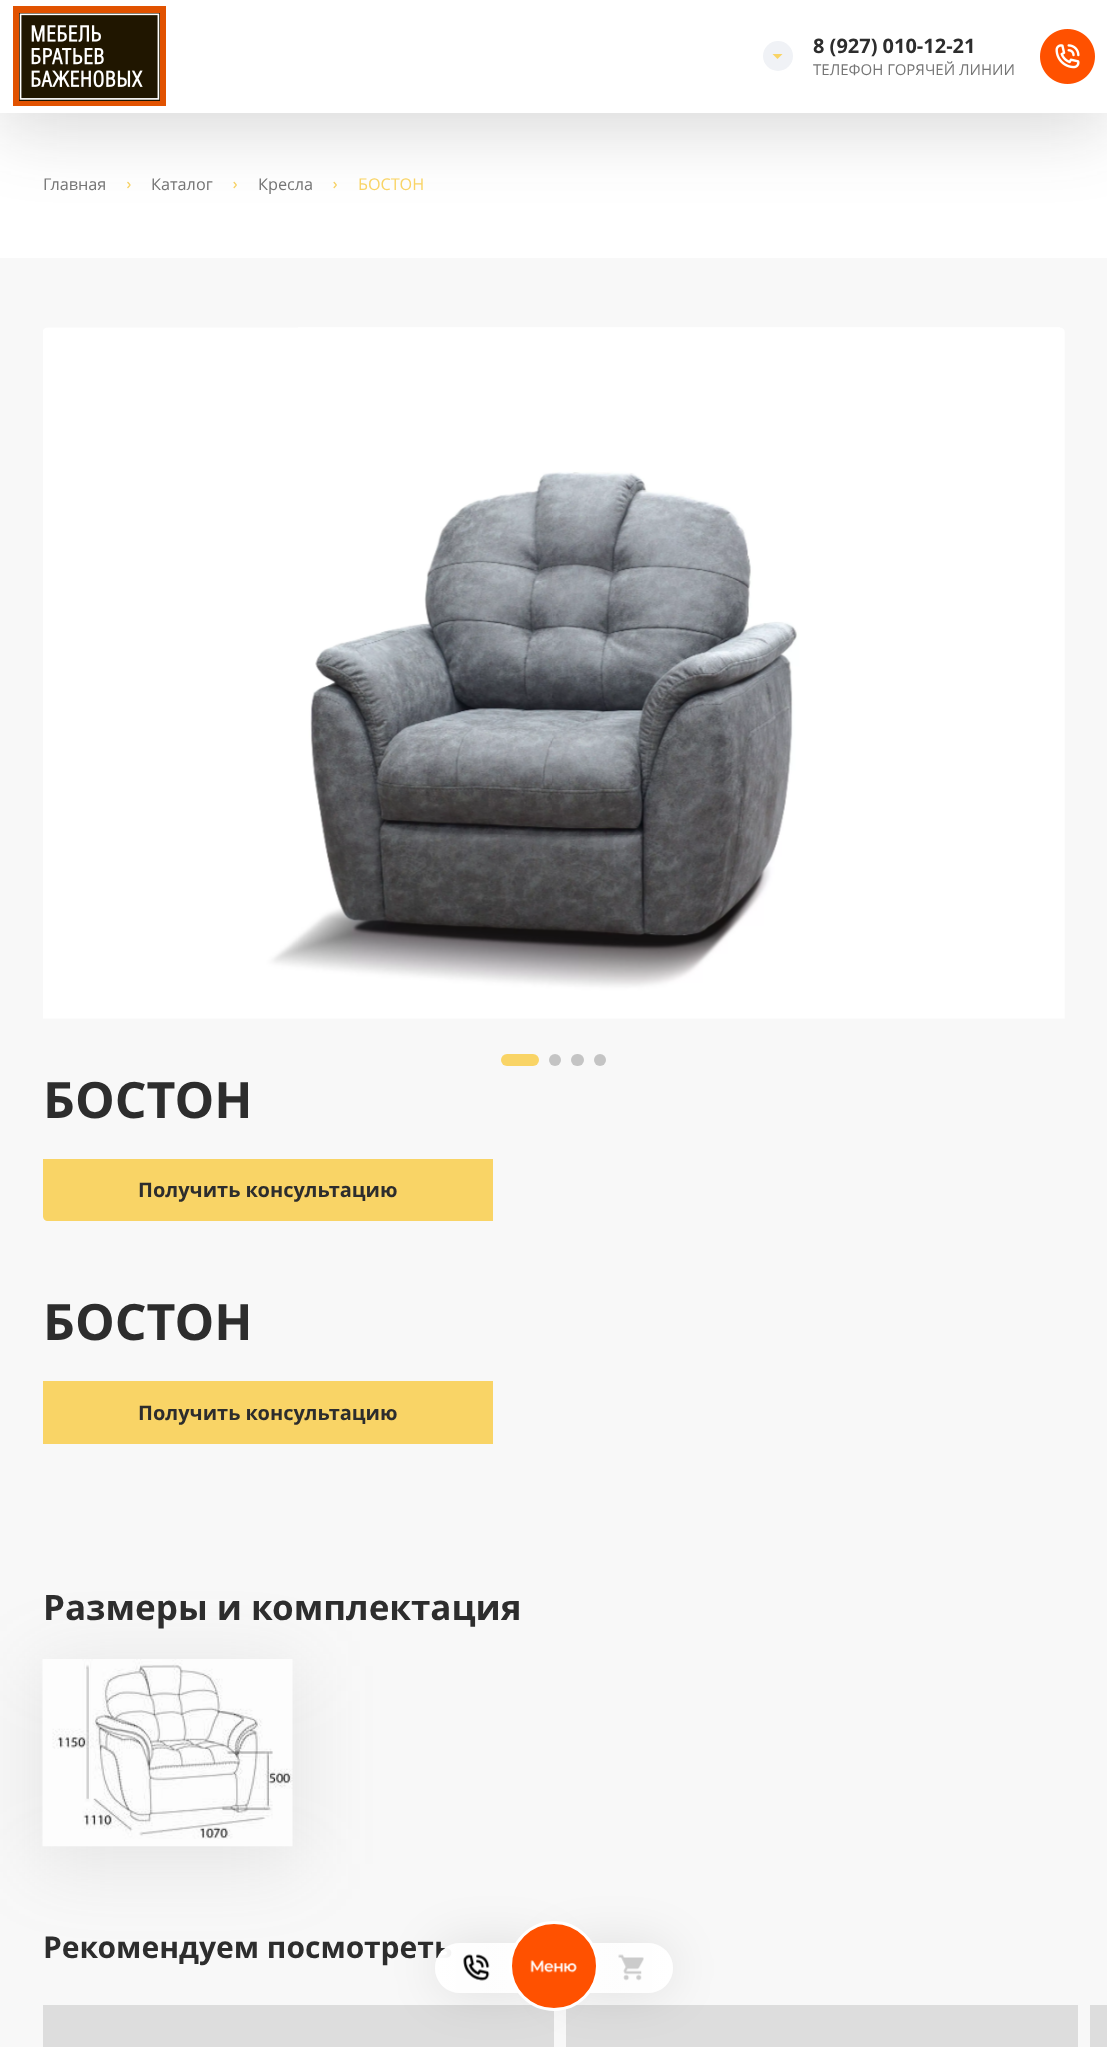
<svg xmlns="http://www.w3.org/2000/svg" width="1107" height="2047">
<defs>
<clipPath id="clip1"><path d="M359 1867h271v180h-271zm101 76h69c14 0 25 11 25 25c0 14-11 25-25 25h-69c-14 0-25-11-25-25c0-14 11-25 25-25z" clip-rule="evenodd"/></clipPath>
<linearGradient id="g1" gradientUnits="userSpaceOnUse" x1="435" y1="1968" x2="554" y2="1968"><stop offset="0" stop-color="#fff"/><stop offset="0.49" stop-color="#fff" stop-opacity="0.8"/><stop offset="1" stop-color="#fff"/></linearGradient>
<clipPath id="clip2"><path d="M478 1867h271v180h-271zm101 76h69c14 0 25 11 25 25c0 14-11 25-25 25h-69c-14 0-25-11-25-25c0-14 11-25 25-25z" clip-rule="evenodd"/></clipPath>
<linearGradient id="g2" gradientUnits="userSpaceOnUse" x1="673" y1="1968" x2="554" y2="1968"><stop offset="0" stop-color="#fff"/><stop offset="0.49" stop-color="#fff" stop-opacity="0.8"/><stop offset="1" stop-color="#fff"/></linearGradient>
</defs>
<rect width="100%" height="100%" fill="#fff"/>
<image x="127" y="181" width="4" height="8" href="media/3.png"/>
<image x="233" y="181" width="4" height="8" href="media/4.png"/>
<image x="333" y="181" width="4" height="8" href="media/4.png"/>
<rect y="13" width="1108" height="112" fill="#2d2d2d33" filter="blur(37.5px)"/>
<rect width="1107" height="113" fill="#fff"/>
<image x="13" y="6" width="153" height="100" href="media/1.png"/>
<circle cx="778" cy="56" r="15" fill="#f0f2f6"/>
<path d="M772.5 54h10l-5 5z" fill="#f9d466"/>
<text x="813" y="53" style="font-family:Open Sans;font-size:20px;font-weight:bold;fill:#2d2d2d">8 (927) 010-12-21</text>
<text x="813" y="75" style="font-family:Open Sans;font-size:15px;fill:#757575">ТЕЛЕФОН ГОРЯЧЕЙ ЛИНИИ</text>
<image x="1040" y="29" width="55" height="55" href="media/2.png"/>
<text x="43" y="190" style="font-family:Open Sans;font-size:16.25px;fill:#757575">Главная</text>
<text x="151" y="190" style="font-family:Open Sans;font-size:16.25px;fill:#757575">Каталог</text>
<text x="258" y="190" style="font-family:Open Sans;font-size:16.25px;fill:#757575">Кресла</text>
<text x="358" y="190" style="font-family:Open Sans;font-size:16.25px;fill:#f9d466">БОСТОН</text>
<rect y="258" width="1107" height="1789" fill="#f8f8f8"/>
<image x="43" y="327" width="1022" height="692" href="media/5.png"/>
<rect x="501" y="1054" width="38" height="12" rx="6" fill="#f9d466"/>
<circle cx="555" cy="1060" r="6" fill="#c4c4c4"/>
<rect x="571" y="1054" width="13" height="12" rx="6" fill="#c4c4c4"/>
<circle cx="600" cy="1060" r="6" fill="#c4c4c4"/>
<text x="43" y="1118" style="font-family:Open Sans;font-size:50px;font-weight:bold;fill:#2d2d2d">БОСТОН</text>
<path d="M43 1159h450v62h-445c-3 0-5-2-5-5z" fill="#f9d466"/>
<text x="138" y="1197" style="font-family:Open Sans;font-size:20px;font-weight:bold;fill:#2d2d2d">Получить консультацию</text>
<text x="43" y="1340" style="font-family:Open Sans;font-size:50px;font-weight:bold;fill:#2d2d2d">БОСТОН</text>
<rect x="43" y="1381" width="450" height="63" fill="#f9d466"/>
<text x="138" y="1420" style="font-family:Open Sans;font-size:20px;font-weight:bold;fill:#2d2d2d">Получить консультацию</text>
<rect x="38" y="1666" width="260" height="198" fill="#7b7b7b26" filter="blur(37.5px)"/>
<image x="42" y="1659" width="251" height="188" href="media/6.png"/>
<text x="43" y="1620" style="font-family:Open Sans;font-size:35px;font-weight:bold;fill:#2d2d2d">Размеры и комплектация</text>
<text x="43" y="1958" style="font-family:Open Sans;font-size:30px;font-weight:bold;fill:#2d2d2d">Рекомендуем посмотреть</text>
<rect x="43" y="2005" width="511" height="42" fill="#ddd"/>
<rect x="566" y="2005" width="512" height="42" fill="#ddd"/>
<rect x="1090" y="2005" width="17" height="42" fill="#ddd"/>
<g clip-path="url(#clip1)">
<rect x="435" y="1943" width="119" height="50" rx="25" fill="#0000001a" filter="blur(25px)"/>
</g>
<rect x="435" y="1943" width="119" height="50" rx="25" fill="url(#g1)"/>
<image x="463" y="1954" width="27" height="27" href="media/7.png"/>
<g clip-path="url(#clip2)">
<rect x="554" y="1943" width="119" height="50" rx="25" fill="#0000001a" filter="blur(25px)"/>
</g>
<rect x="554" y="1943" width="119" height="50" rx="25" fill="url(#g2)"/>
<image x="618" y="1954" width="26" height="27" href="media/8.png"/>
<circle cx="554" cy="1966" r="43.5" fill="#ff5100" stroke="#fff" stroke-width="3"/>
<image x="530" y="1960" width="47" height="13" href="media/9.png"/>
</svg>
